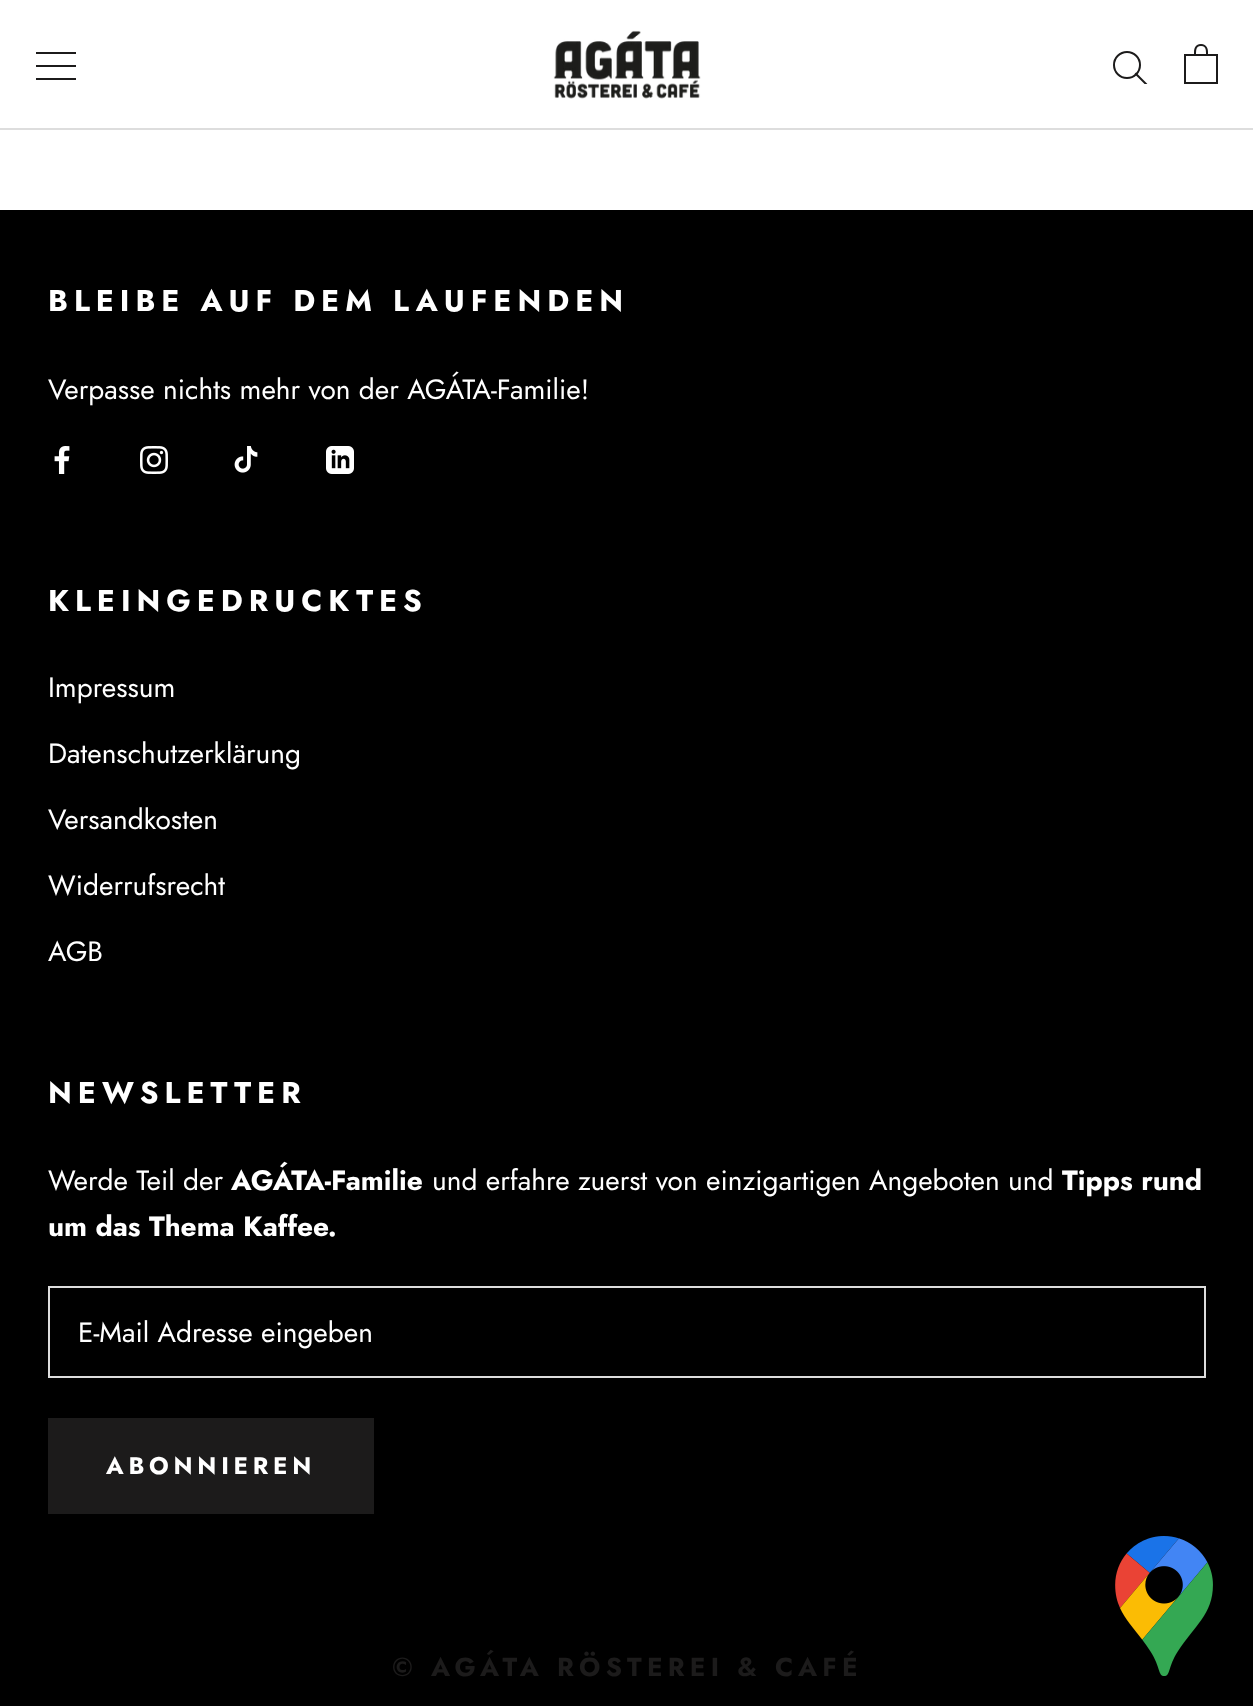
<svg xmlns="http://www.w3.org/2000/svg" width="1253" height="1706">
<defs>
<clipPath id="clip1"><rect x="1112" y="50" width="36" height="34"/></clipPath>
</defs>
<rect width="100%" height="100%" fill="#fff"/>
<rect y="128" width="1253" height="2" fill="#ddd"/>
<path d="M36 80v-2h40v2zm0-15h40v2h-40zm0-13h40v2h-40z" fill="#1c1b1b"/>
<image x="553" y="30" width="148" height="69" href="media/1.png"/>
<g clip-path="url(#clip1)">
<path d="M1146 84l-10-10" fill="none" stroke="#1c1b1b" stroke-width="2" stroke-linecap="square"/>
</g>
<circle cx="1127" cy="65" r="13" fill="none" stroke="#1c1b1b" stroke-width="2"/>
<image x="1184" y="44" width="34" height="40" href="media/2.png"/>
<rect y="210" width="1253" height="1496" fill="#000"/>
<text x="48" y="311" style="font-family:Jost;font-size:30px;font-weight:bold;letter-spacing:6px;fill:#fff">BLEIBE AUF DEM LAUFENDEN</text>
<text x="48" y="399" style="font-family:Jost;font-size:28px;fill:#fff">Verpasse nichts mehr von der AGÁTA-Familie!</text>
<image x="54" y="446" width="16" height="28" href="media/3.png"/>
<image x="140" y="446" width="28" height="28" href="media/4.png"/>
<image x="234" y="446" width="24" height="27" href="media/5.png"/>
<image x="326" y="446" width="28" height="28" href="media/6.png"/>
<text x="48" y="611" style="font-family:Jost;font-size:30px;font-weight:bold;letter-spacing:6px;fill:#fff">KLEINGEDRUCKTES</text>
<text x="48" y="697" style="font-family:Jost;font-size:28px;fill:#fff">Impressum</text>
<text x="48" y="763" style="font-family:Jost;font-size:28px;fill:#fff">Datenschutzerklärung</text>
<text x="48" y="829" style="font-family:Jost;font-size:28px;fill:#fff">Versandkosten</text>
<text x="48" y="895" style="font-family:Jost;font-size:28px;fill:#fff">Widerrufsrecht</text>
<text x="48" y="961" style="font-family:Jost;font-size:28px;fill:#fff">AGB</text>
<text x="48" y="1103" style="font-family:Jost;font-size:30px;font-weight:bold;letter-spacing:6px;fill:#fff">NEWSLETTER</text>
<text x="48" y="1190" style="font-family:Jost;font-size:28px;fill:#fff">Werde Teil der</text>
<text x="231" y="1190" style="font-family:Jost;font-size:28px;font-weight:bold;fill:#fff">AGÁTA-Familie</text>
<text x="432" y="1190" style="font-family:Jost;font-size:28px;fill:#fff">und erfahre zuerst von einzigartigen Angeboten und</text>
<text x="1062" y="1190" style="font-family:Jost;font-size:28px;font-weight:bold;fill:#fff">Tipps rund</text>
<text x="48" y="1236" style="font-family:Jost;font-size:28px;font-weight:bold;fill:#fff">um das Thema Kaffee.</text>
<rect x="49" y="1287" width="1156" height="90" fill="none" stroke="#ddd" stroke-width="2"/>
<text x="78" y="1342" style="font-family:Jost;font-size:28px;fill:#fff">E-Mail Adresse eingeben</text>
<rect x="49" y="1419" width="324" height="94" fill="none" stroke="#1c1b1b" stroke-width="2"/>
<rect x="50" y="1420" width="322" height="92" fill="#1c1b1b"/>
<text x="106" y="1474" style="font-family:Jost;font-size:24px;font-weight:bold;letter-spacing:4.75px;fill:#fff">ABONNIEREN</text>
<text x="392" y="1676" style="font-family:Jost;font-size:26px;font-weight:bold;letter-spacing:5.2px;fill:#1c1b1b">© AGÁTA RÖSTEREI &amp; CAFÉ</text>
<image x="1115" y="1536" width="98" height="140" href="media/7.png"/>
</svg>
